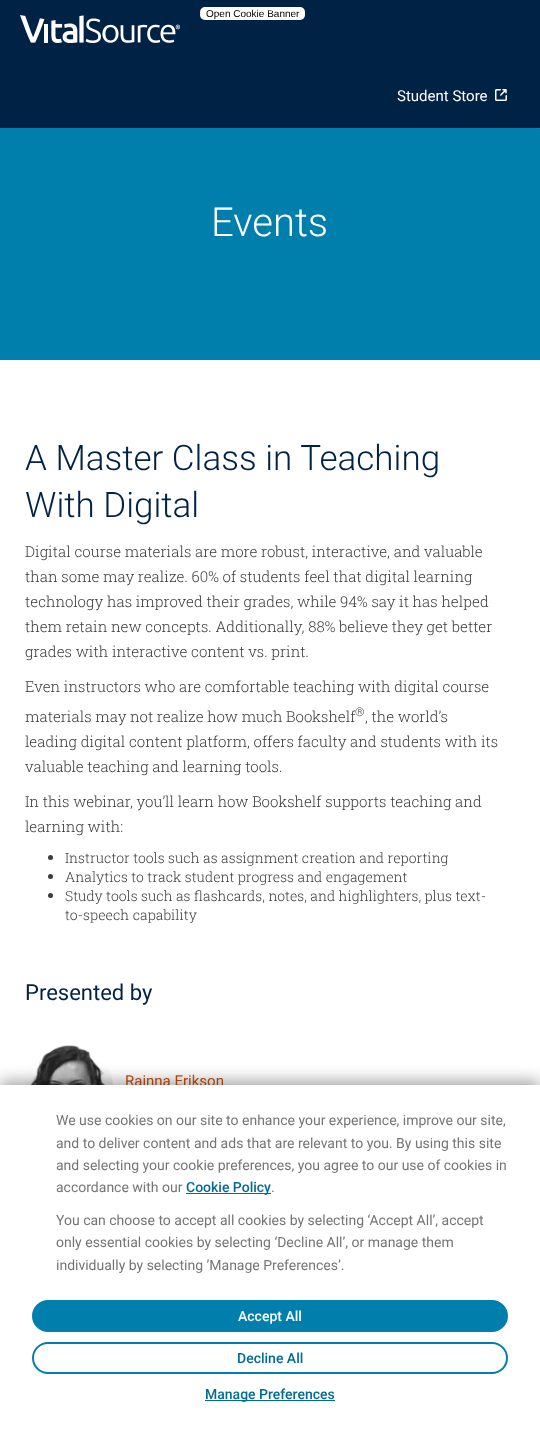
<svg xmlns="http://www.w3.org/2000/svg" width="540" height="1429">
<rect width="100%" height="100%" fill="#fff"/>
<rect y="128" width="540" height="232" fill="#007fad"/>
<path d="M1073 195l-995-124h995z" fill="#75cfec47"/>
<rect width="540" height="128" fill="#024"/>
<rect x="200" y="7" width="105" height="13" rx="5" fill="#fff"/>
<text x="206" y="17" style="font-family:Liberation Sans;font-size:10px;fill:#000">Open Cookie Banner</text>
<image x="20" y="15" width="160" height="28" href="media/1.png"/>
<image x="495" y="89" width="12" height="12" href="media/2.png"/>
<text x="397" y="101" style="font-family:Roboto;font-size:15px;fill:#fff">Student Store</text>
<text x="211" y="236" style="font-family:Roboto;font-size:40px;font-weight:300;fill:#fff">Events</text>
<text x="25" y="470" style="font-family:Roboto;font-size:35px;font-weight:300;fill:#024">A Master Class in Teaching</text>
<text x="25" y="517" style="font-family:Roboto;font-size:35px;font-weight:300;fill:#024">With Digital</text>
<text x="25" y="557" style="font-family:Roboto Slab;font-size:15px;font-weight:300;fill:#3c3c3c">Digital course materials are more robust, interactive, and valuable</text>
<text x="25" y="582" style="font-family:Roboto Slab;font-size:15px;font-weight:300;fill:#3c3c3c">than some may realize. 60% of students feel that digital learning</text>
<text x="25" y="607" style="font-family:Roboto Slab;font-size:15px;font-weight:300;fill:#3c3c3c">technology has improved their grades, while 94% say it has helped</text>
<text x="25" y="632" style="font-family:Roboto Slab;font-size:15px;font-weight:300;fill:#3c3c3c">them retain new concepts. Additionally, 88% believe they get better</text>
<text x="25" y="657" style="font-family:Roboto Slab;font-size:15px;font-weight:300;fill:#3c3c3c">grades with interactive content vs. print.</text>
<text x="25" y="692" style="font-family:Roboto Slab;font-size:15px;font-weight:300;fill:#3c3c3c">Even instructors who are comfortable teaching with digital course</text>
<text x="25" y="722" style="font-family:Roboto Slab;font-size:15px;font-weight:300;fill:#3c3c3c">materials may not realize how much Bookshelf</text>
<text x="355" y="716" style="font-family:Roboto Slab;font-size:12px;font-weight:300;fill:#3c3c3c">®</text>
<text x="365" y="722" style="font-family:Roboto Slab;font-size:15px;font-weight:300;fill:#3c3c3c">, the world’s</text>
<text x="25" y="747" style="font-family:Roboto Slab;font-size:15px;font-weight:300;fill:#3c3c3c">leading digital content platform, offers faculty and students with its</text>
<text x="25" y="772" style="font-family:Roboto Slab;font-size:15px;font-weight:300;fill:#3c3c3c">valuable teaching and learning tools.</text>
<text x="25" y="807" style="font-family:Roboto Slab;font-size:15px;font-weight:300;fill:#3c3c3c">In this webinar, you’ll learn how Bookshelf supports teaching and</text>
<text x="25" y="832" style="font-family:Roboto Slab;font-size:15px;font-weight:300;fill:#3c3c3c">learning with:</text>
<circle cx="50.5" cy="857.5" r="2.5" fill="#3c3c3c"/>
<text x="65" y="863" style="font-family:Roboto Slab;font-size:14px;font-weight:300;fill:#3c3c3c">Instructor tools such as assignment creation and reporting</text>
<circle cx="50.5" cy="876.5" r="2.5" fill="#3c3c3c"/>
<text x="65" y="882" style="font-family:Roboto Slab;font-size:14px;font-weight:300;fill:#3c3c3c">Analytics to track student progress and engagement</text>
<circle cx="50.5" cy="895.5" r="2.5" fill="#3c3c3c"/>
<text x="65" y="901" style="font-family:Roboto Slab;font-size:14px;font-weight:300;fill:#3c3c3c">Study tools such as flashcards, notes, and highlighters, plus text-</text>
<text x="65" y="920" style="font-family:Roboto Slab;font-size:14px;font-weight:300;fill:#3c3c3c">to-speech capability</text>
<text x="25" y="1000" style="font-family:Roboto;font-size:22px;fill:#024">Presented by</text>
<image x="25" y="1044" width="88" height="41" href="media/3.png"/>
<text x="125" y="1086" style="font-family:Roboto;font-size:15px;fill:#ca500f">Rainna Erikson</text>
<rect y="1081" width="540" height="344" fill="#0000005c" filter="blur(8px)"/>
<rect y="1085" width="540" height="344" fill="#fff"/>
<text x="56" y="1125" style="font-family:Roboto;font-size:14px;fill:#757575">We use cookies on our site to enhance your experience, improve our site,</text>
<text x="56" y="1148" style="font-family:Roboto;font-size:14px;fill:#757575">and to deliver content and ads that are relevant to you. By using this site</text>
<text x="56" y="1170" style="font-family:Roboto;font-size:14px;fill:#757575">and selecting your cookie preferences, you agree to our use of cookies in</text>
<text x="56" y="1192" style="font-family:Roboto;font-size:14px;fill:#757575">accordance with our</text>
<rect x="186" y="1193" width="85" height="1" fill="#006c94"/>
<text x="186" y="1192" style="font-family:Roboto;font-size:14px;font-weight:500;fill:#006c94">Cookie Policy</text>
<text x="271" y="1192" style="font-family:Roboto;font-size:14px;fill:#757575">.</text>
<text x="56" y="1225" style="font-family:Roboto;font-size:14px;fill:#757575">You can choose to accept all cookies by selecting ‘Accept All’, accept</text>
<text x="56" y="1247" style="font-family:Roboto;font-size:14px;fill:#757575">only essential cookies by selecting ‘Decline All’, or manage them</text>
<text x="56" y="1270" style="font-family:Roboto;font-size:14px;fill:#757575">individually by selecting ’Manage Preferences’.</text>
<rect x="33" y="1301" width="474" height="30" rx="15" fill="#007fad" stroke="#007fad" stroke-width="2"/>
<text x="238" y="1321" style="font-family:Roboto;font-size:14px;font-weight:500;fill:#fff">Accept All</text>
<rect x="33" y="1343" width="474" height="30" rx="15" fill="none" stroke="#007fad" stroke-width="2"/>
<text x="237" y="1363" style="font-family:Roboto;font-size:14px;font-weight:500;fill:#006c94">Decline All</text>
<rect x="205" y="1400" width="130" height="1" fill="#006c94"/>
<text x="205" y="1399" style="font-family:Roboto;font-size:14px;font-weight:500;fill:#006c94">Manage Preferences</text>
</svg>
